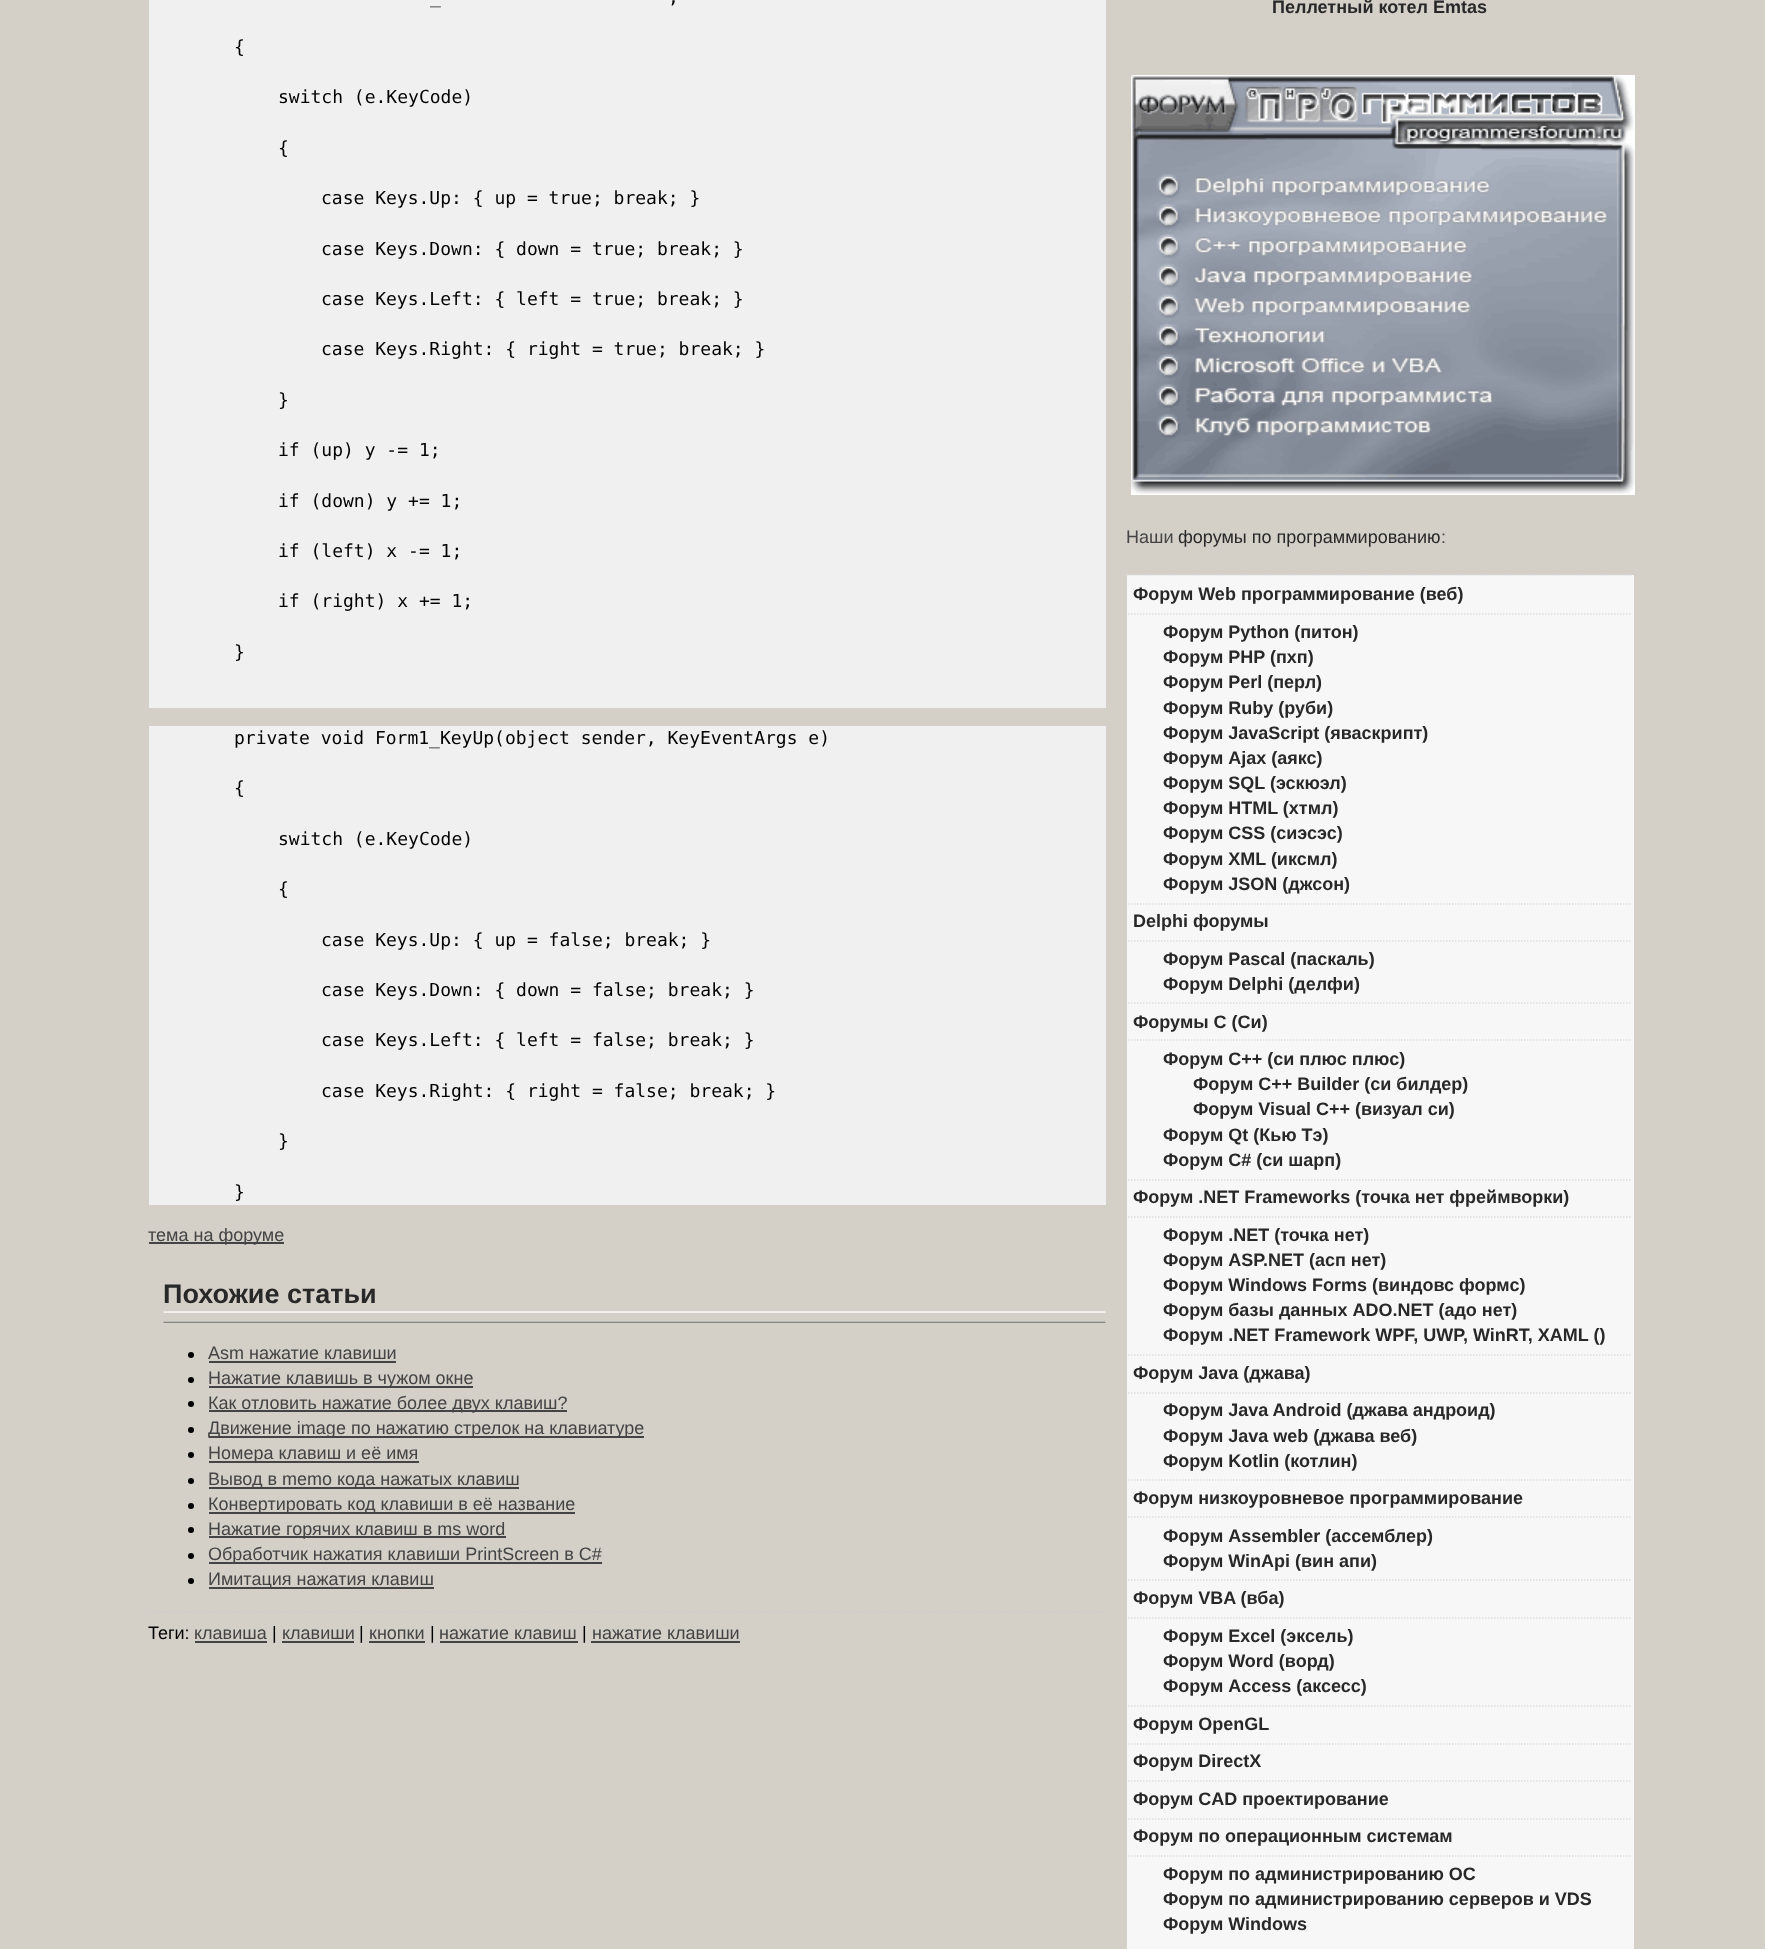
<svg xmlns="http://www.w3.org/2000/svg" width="1765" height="1949">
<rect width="100%" height="100%" fill="#d4d0c8"/>
<rect x="149" width="957" height="708" fill="#f0f0f0"/>
<text x="668" y="3" style="font-family:DejaVu Sans Mono;font-size:18px;fill:#000">,</text>
<text x="430" y="3" style="font-family:DejaVu Sans Mono;font-size:18px;fill:#000">_</text>
<text x="234" y="53" style="font-family:DejaVu Sans Mono;font-size:18px;fill:#000">{</text>
<text x="278" y="103" style="font-family:DejaVu Sans Mono;font-size:18px;fill:#000">switch (e.KeyCode)</text>
<text x="278" y="154" style="font-family:DejaVu Sans Mono;font-size:18px;fill:#000">{</text>
<text x="321" y="204" style="font-family:DejaVu Sans Mono;font-size:18px;fill:#000">case Keys.Up: { up = true; break; }</text>
<text x="321" y="255" style="font-family:DejaVu Sans Mono;font-size:18px;fill:#000">case Keys.Down: { down = true; break; }</text>
<text x="321" y="305" style="font-family:DejaVu Sans Mono;font-size:18px;fill:#000">case Keys.Left: { left = true; break; }</text>
<text x="321" y="355" style="font-family:DejaVu Sans Mono;font-size:18px;fill:#000">case Keys.Right: { right = true; break; }</text>
<text x="278" y="406" style="font-family:DejaVu Sans Mono;font-size:18px;fill:#000">}</text>
<text x="278" y="456" style="font-family:DejaVu Sans Mono;font-size:18px;fill:#000">if (up) y -= 1;</text>
<text x="278" y="507" style="font-family:DejaVu Sans Mono;font-size:18px;fill:#000">if (down) y += 1;</text>
<text x="278" y="557" style="font-family:DejaVu Sans Mono;font-size:18px;fill:#000">if (left) x -= 1;</text>
<text x="278" y="607" style="font-family:DejaVu Sans Mono;font-size:18px;fill:#000">if (right) x += 1;</text>
<text x="234" y="658" style="font-family:DejaVu Sans Mono;font-size:18px;fill:#000">}</text>
<rect x="149" y="726" width="957" height="479" fill="#f0f0f0"/>
<text x="234" y="744" style="font-family:DejaVu Sans Mono;font-size:18px;fill:#000">private void Form1_KeyUp(object sender, KeyEventArgs e)</text>
<text x="234" y="794" style="font-family:DejaVu Sans Mono;font-size:18px;fill:#000">{</text>
<text x="278" y="845" style="font-family:DejaVu Sans Mono;font-size:18px;fill:#000">switch (e.KeyCode)</text>
<text x="278" y="895" style="font-family:DejaVu Sans Mono;font-size:18px;fill:#000">{</text>
<text x="321" y="946" style="font-family:DejaVu Sans Mono;font-size:18px;fill:#000">case Keys.Up: { up = false; break; }</text>
<text x="321" y="996" style="font-family:DejaVu Sans Mono;font-size:18px;fill:#000">case Keys.Down: { down = false; break; }</text>
<text x="321" y="1046" style="font-family:DejaVu Sans Mono;font-size:18px;fill:#000">case Keys.Left: { left = false; break; }</text>
<text x="321" y="1097" style="font-family:DejaVu Sans Mono;font-size:18px;fill:#000">case Keys.Right: { right = false; break; }</text>
<text x="278" y="1147" style="font-family:DejaVu Sans Mono;font-size:18px;fill:#000">}</text>
<text x="234" y="1198" style="font-family:DejaVu Sans Mono;font-size:18px;fill:#000">}</text>
<rect x="149" y="1242" width="135" height="2" fill="#444"/>
<text x="148" y="1241" style="font-family:Liberation Sans;font-size:18px;fill:#444">тема на форуме</text>
<image x="163" y="1311" width="943" height="12" href="media/1.png"/>
<text x="163" y="1303" style="font-family:Liberation Sans;font-size:27px;font-weight:bold;fill:#282828">Похожие статьи</text>
<circle cx="191" cy="1355" r="3" fill="#000"/>
<text x="208" y="1359" style="font-family:Liberation Sans;font-size:18px;fill:#444">Asm нажатие клавиши</text>
<rect x="209" y="1361" width="187" height="2" fill="#444"/>
<circle cx="191" cy="1380" r="3" fill="#000"/>
<rect x="209" y="1386" width="264" height="2" fill="#444"/>
<text x="208" y="1384" style="font-family:Liberation Sans;font-size:18px;fill:#444">Нажатие клавишь в чужом окне</text>
<circle cx="191" cy="1404" r="3" fill="#000"/>
<rect x="209" y="1410" width="358" height="2" fill="#444"/>
<text x="208" y="1409" style="font-family:Liberation Sans;font-size:18px;fill:#444">Как отловить нажатие более двух клавиш?</text>
<circle cx="191" cy="1430" r="3" fill="#000"/>
<rect x="209" y="1436" width="435" height="2" fill="#444"/>
<text x="208" y="1434" style="font-family:Liberation Sans;font-size:18px;fill:#444">Движение image по нажатию стрелок на клавиатуре</text>
<circle cx="191" cy="1455" r="3" fill="#000"/>
<rect x="209" y="1461" width="210" height="2" fill="#444"/>
<text x="208" y="1459" style="font-family:Liberation Sans;font-size:18px;fill:#444">Номера клавиш и её имя</text>
<circle cx="191" cy="1481" r="3" fill="#000"/>
<rect x="209" y="1487" width="310" height="2" fill="#444"/>
<text x="208" y="1485" style="font-family:Liberation Sans;font-size:18px;fill:#444">Вывод в memo кода нажатых клавиш</text>
<circle cx="191" cy="1506" r="3" fill="#000"/>
<rect x="209" y="1512" width="366" height="2" fill="#444"/>
<text x="208" y="1510" style="font-family:Liberation Sans;font-size:18px;fill:#444">Конвертировать код клавиши в её название</text>
<circle cx="191" cy="1530" r="3" fill="#000"/>
<rect x="209" y="1536" width="297" height="2" fill="#444"/>
<text x="208" y="1535" style="font-family:Liberation Sans;font-size:18px;fill:#444">Нажатие горячих клавиш в ms word</text>
<circle cx="191" cy="1556" r="3" fill="#000"/>
<rect x="209" y="1562" width="393" height="2" fill="#444"/>
<text x="208" y="1560" style="font-family:Liberation Sans;font-size:18px;fill:#444">Обработчик нажатия клавиши PrintScreen в C#</text>
<circle cx="191" cy="1581" r="3" fill="#000"/>
<rect x="209" y="1587" width="225" height="2" fill="#444"/>
<text x="208" y="1585" style="font-family:Liberation Sans;font-size:18px;fill:#444">Имитация нажатия клавиш</text>
<path d="M148.5 1612h957" fill="none" stroke="#ccc" stroke-width="1.5" stroke-dasharray="1.5 1.5"/>
<text x="148" y="1639" style="font-family:Liberation Sans;font-size:18px;fill:#000">Теги:</text>
<text x="194" y="1639" style="font-family:Liberation Sans;font-size:18px;fill:#444">клавиша</text>
<rect x="195" y="1641" width="72" height="2" fill="#444"/>
<text x="272" y="1639" style="font-family:Liberation Sans;font-size:18px;fill:#000">|</text>
<text x="282" y="1639" style="font-family:Liberation Sans;font-size:18px;fill:#444">клавиши</text>
<rect x="282" y="1641" width="72" height="2" fill="#444"/>
<text x="359" y="1639" style="font-family:Liberation Sans;font-size:18px;fill:#000">|</text>
<text x="369" y="1639" style="font-family:Liberation Sans;font-size:18px;fill:#444">кнопки</text>
<rect x="369" y="1641" width="56" height="2" fill="#444"/>
<text x="430" y="1639" style="font-family:Liberation Sans;font-size:18px;fill:#000">|</text>
<text x="439" y="1639" style="font-family:Liberation Sans;font-size:18px;fill:#444">нажатие клавиш</text>
<rect x="440" y="1641" width="138" height="2" fill="#444"/>
<text x="582" y="1639" style="font-family:Liberation Sans;font-size:18px;fill:#000">|</text>
<text x="592" y="1639" style="font-family:Liberation Sans;font-size:18px;fill:#444">нажатие клавиши</text>
<rect x="591" y="1641" width="149" height="2" fill="#444"/>
<text x="1272" y="13" style="font-family:Liberation Sans;font-size:18px;font-weight:bold;fill:#282828">Пеллетный котел Emtas</text>
<image x="1131" y="75" width="504" height="420" href="media/2.png"/>
<text x="1126" y="543" style="font-family:Liberation Sans;font-size:18px;fill:#444">Наши</text>
<text x="1178" y="543" style="font-family:Liberation Sans;font-size:18px;fill:#282828">форумы по программированию</text>
<text x="1441" y="543" style="font-family:Liberation Sans;font-size:18px;fill:#444">:</text>
<rect x="1127" y="575" width="507" height="1374" fill="#f7f7f7"/>
<path d="M1126.5 575h507" fill="none" stroke="#ddd" stroke-width="1.5" stroke-dasharray="1.5 1.5"/>
<path d="M1128 614h502.5" fill="none" stroke="#ddd" stroke-width="1.5" stroke-dasharray="1.5 1.5"/>
<text x="1133" y="600" style="font-family:Liberation Sans;font-size:18px;font-weight:bold;fill:#282828">Форум Web программирование (веб)</text>
<path d="M1128 904h502.5" fill="none" stroke="#ddd" stroke-width="1.5" stroke-dasharray="1.5 1.5"/>
<text x="1163" y="638" style="font-family:Liberation Sans;font-size:18px;font-weight:bold;fill:#282828">Форум Python (питон)</text>
<text x="1163" y="663" style="font-family:Liberation Sans;font-size:18px;font-weight:bold;fill:#282828">Форум PHP (пхп)</text>
<text x="1163" y="688" style="font-family:Liberation Sans;font-size:18px;font-weight:bold;fill:#282828">Форум Perl (перл)</text>
<text x="1163" y="714" style="font-family:Liberation Sans;font-size:18px;font-weight:bold;fill:#282828">Форум Ruby (руби)</text>
<text x="1163" y="739" style="font-family:Liberation Sans;font-size:18px;font-weight:bold;fill:#282828">Форум JavaScript (яваскрипт)</text>
<text x="1163" y="764" style="font-family:Liberation Sans;font-size:18px;font-weight:bold;fill:#282828">Форум Ajax (аякс)</text>
<text x="1163" y="789" style="font-family:Liberation Sans;font-size:18px;font-weight:bold;fill:#282828">Форум SQL (эскюэл)</text>
<text x="1163" y="814" style="font-family:Liberation Sans;font-size:18px;font-weight:bold;fill:#282828">Форум HTML (хтмл)</text>
<text x="1163" y="839" style="font-family:Liberation Sans;font-size:18px;font-weight:bold;fill:#282828">Форум CSS (сиэсэс)</text>
<text x="1163" y="865" style="font-family:Liberation Sans;font-size:18px;font-weight:bold;fill:#282828">Форум XML (иксмл)</text>
<text x="1163" y="890" style="font-family:Liberation Sans;font-size:18px;font-weight:bold;fill:#282828">Форум JSON (джсон)</text>
<path d="M1128 941h502.5" fill="none" stroke="#ddd" stroke-width="1.5" stroke-dasharray="1.5 1.5"/>
<text x="1133" y="927" style="font-family:Liberation Sans;font-size:18px;font-weight:bold;fill:#282828">Delphi форумы</text>
<path d="M1128 1003h502.5" fill="none" stroke="#ddd" stroke-width="1.5" stroke-dasharray="1.5 1.5"/>
<text x="1163" y="965" style="font-family:Liberation Sans;font-size:18px;font-weight:bold;fill:#282828">Форум Pascal (паскаль)</text>
<text x="1163" y="990" style="font-family:Liberation Sans;font-size:18px;font-weight:bold;fill:#282828">Форум Delphi (делфи)</text>
<path d="M1128 1040h502.5" fill="none" stroke="#ddd" stroke-width="1.5" stroke-dasharray="1.5 1.5"/>
<text x="1133" y="1028" style="font-family:Liberation Sans;font-size:18px;font-weight:bold;fill:#282828">Форумы C (Си)</text>
<path d="M1128 1180h502.5" fill="none" stroke="#ddd" stroke-width="1.5" stroke-dasharray="1.5 1.5"/>
<text x="1163" y="1065" style="font-family:Liberation Sans;font-size:18px;font-weight:bold;fill:#282828">Форум C++ (си плюс плюс)</text>
<text x="1193" y="1090" style="font-family:Liberation Sans;font-size:18px;font-weight:bold;fill:#282828">Форум C++ Builder (си билдер)</text>
<text x="1193" y="1115" style="font-family:Liberation Sans;font-size:18px;font-weight:bold;fill:#282828">Форум Visual C++ (визуал си)</text>
<text x="1163" y="1141" style="font-family:Liberation Sans;font-size:18px;font-weight:bold;fill:#282828">Форум Qt (Кью Тэ)</text>
<text x="1163" y="1166" style="font-family:Liberation Sans;font-size:18px;font-weight:bold;fill:#282828">Форум C# (си шарп)</text>
<path d="M1128 1217h502.5" fill="none" stroke="#ddd" stroke-width="1.5" stroke-dasharray="1.5 1.5"/>
<text x="1133" y="1203" style="font-family:Liberation Sans;font-size:18px;font-weight:bold;fill:#282828">Форум .NET Frameworks (точка нет фреймворки)</text>
<path d="M1128 1355h502.5" fill="none" stroke="#ddd" stroke-width="1.5" stroke-dasharray="1.5 1.5"/>
<text x="1163" y="1241" style="font-family:Liberation Sans;font-size:18px;font-weight:bold;fill:#282828">Форум .NET (точка нет)</text>
<text x="1163" y="1266" style="font-family:Liberation Sans;font-size:18px;font-weight:bold;fill:#282828">Форум ASP.NET (асп нет)</text>
<text x="1163" y="1291" style="font-family:Liberation Sans;font-size:18px;font-weight:bold;fill:#282828">Форум Windows Forms (виндовс формс)</text>
<text x="1163" y="1316" style="font-family:Liberation Sans;font-size:18px;font-weight:bold;fill:#282828">Форум базы данных ADO.NET (адо нет)</text>
<text x="1163" y="1341" style="font-family:Liberation Sans;font-size:18px;font-weight:bold;fill:#282828">Форум .NET Framework WPF, UWP, WinRT, XAML ()</text>
<path d="M1128 1393h502.5" fill="none" stroke="#ddd" stroke-width="1.5" stroke-dasharray="1.5 1.5"/>
<text x="1133" y="1379" style="font-family:Liberation Sans;font-size:18px;font-weight:bold;fill:#282828">Форум Java (джава)</text>
<path d="M1128 1480h502.5" fill="none" stroke="#ddd" stroke-width="1.5" stroke-dasharray="1.5 1.5"/>
<text x="1163" y="1416" style="font-family:Liberation Sans;font-size:18px;font-weight:bold;fill:#282828">Форум Java Android (джава андроид)</text>
<text x="1163" y="1442" style="font-family:Liberation Sans;font-size:18px;font-weight:bold;fill:#282828">Форум Java web (джава веб)</text>
<text x="1163" y="1467" style="font-family:Liberation Sans;font-size:18px;font-weight:bold;fill:#282828">Форум Kotlin (котлин)</text>
<path d="M1128 1517h502.5" fill="none" stroke="#ddd" stroke-width="1.5" stroke-dasharray="1.5 1.5"/>
<text x="1133" y="1504" style="font-family:Liberation Sans;font-size:18px;font-weight:bold;fill:#282828">Форум низкоуровневое программирование</text>
<path d="M1128 1580h502.5" fill="none" stroke="#ddd" stroke-width="1.5" stroke-dasharray="1.5 1.5"/>
<text x="1163" y="1542" style="font-family:Liberation Sans;font-size:18px;font-weight:bold;fill:#282828">Форум Assembler (ассемблер)</text>
<text x="1163" y="1567" style="font-family:Liberation Sans;font-size:18px;font-weight:bold;fill:#282828">Форум WinApi (вин апи)</text>
<path d="M1128 1618h502.5" fill="none" stroke="#ddd" stroke-width="1.5" stroke-dasharray="1.5 1.5"/>
<text x="1133" y="1604" style="font-family:Liberation Sans;font-size:18px;font-weight:bold;fill:#282828">Форум VBA (вба)</text>
<path d="M1128 1706h502.5" fill="none" stroke="#ddd" stroke-width="1.5" stroke-dasharray="1.5 1.5"/>
<text x="1163" y="1642" style="font-family:Liberation Sans;font-size:18px;font-weight:bold;fill:#282828">Форум Excel (эксель)</text>
<text x="1163" y="1667" style="font-family:Liberation Sans;font-size:18px;font-weight:bold;fill:#282828">Форум Word (ворд)</text>
<text x="1163" y="1692" style="font-family:Liberation Sans;font-size:18px;font-weight:bold;fill:#282828">Форум Access (аксесс)</text>
<path d="M1128 1744h502.5" fill="none" stroke="#ddd" stroke-width="1.5" stroke-dasharray="1.5 1.5"/>
<text x="1133" y="1730" style="font-family:Liberation Sans;font-size:18px;font-weight:bold;fill:#282828">Форум OpenGL</text>
<path d="M1128 1781h502.5" fill="none" stroke="#ddd" stroke-width="1.5" stroke-dasharray="1.5 1.5"/>
<text x="1133" y="1767" style="font-family:Liberation Sans;font-size:18px;font-weight:bold;fill:#282828">Форум DirectX</text>
<path d="M1128 1819h502.5" fill="none" stroke="#ddd" stroke-width="1.5" stroke-dasharray="1.5 1.5"/>
<text x="1133" y="1805" style="font-family:Liberation Sans;font-size:18px;font-weight:bold;fill:#282828">Форум CAD проектирование</text>
<path d="M1128 1856h502.5" fill="none" stroke="#ddd" stroke-width="1.5" stroke-dasharray="1.5 1.5"/>
<text x="1133" y="1842" style="font-family:Liberation Sans;font-size:18px;font-weight:bold;fill:#282828">Форум по операционным системам</text>
<text x="1163" y="1880" style="font-family:Liberation Sans;font-size:18px;font-weight:bold;fill:#282828">Форум по администрированию ОС</text>
<text x="1163" y="1905" style="font-family:Liberation Sans;font-size:18px;font-weight:bold;fill:#282828">Форум по администрированию серверов и VDS</text>
<text x="1163" y="1930" style="font-family:Liberation Sans;font-size:18px;font-weight:bold;fill:#282828">Форум Windows</text>
</svg>
